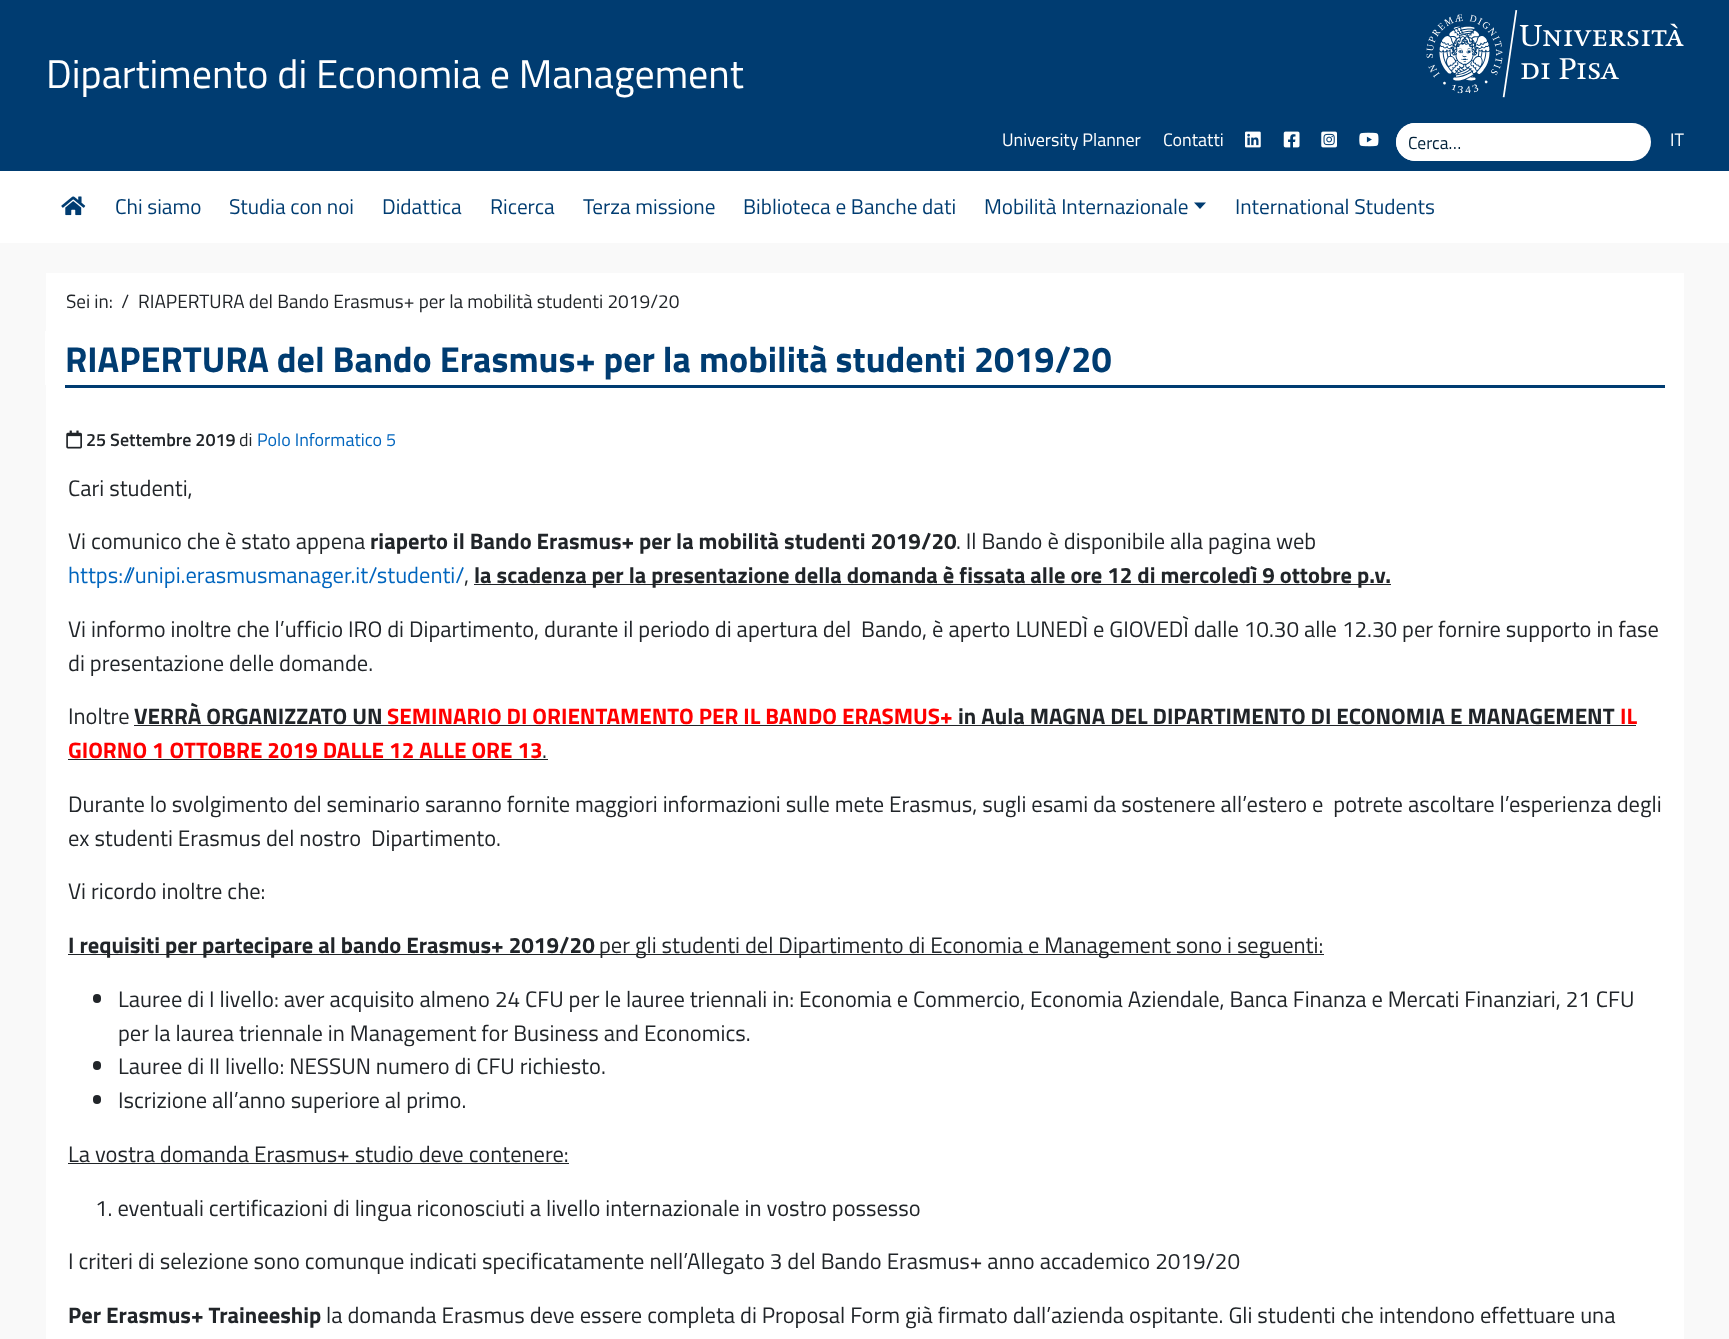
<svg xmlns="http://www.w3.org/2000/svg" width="1729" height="1339">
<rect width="100%" height="100%" fill="#f9f9f9"/>
<rect width="1729" height="171" fill="#003c71"/>
<text x="46" y="88" style="font-family:Titillium Web;font-size:40px;fill:#fff">Dipartimento di Economia e Management</text>
<image x="1426" y="10" width="258" height="88" href="media/1.png"/>
<text x="1002" y="146" style="font-family:Titillium Web;font-size:18px;fill:#fff">University Planner</text>
<text x="1163" y="146" style="font-family:Titillium Web;font-size:18px;fill:#fff">Contatti</text>
<image x="1245" y="131" width="16" height="17" href="media/2.png"/>
<image x="1283" y="131" width="17" height="17" href="media/3.png"/>
<image x="1321" y="131" width="16" height="17" href="media/4.png"/>
<image x="1359" y="132" width="20" height="15" href="media/5.png"/>
<rect x="1396" y="123" width="255" height="38" rx="19" fill="#fff"/>
<path d="M1415 123.5h192.5v37h-192.5c-10 0-18.5-8.5-18.5-18.5c0-10 8.5-18.5 18.5-18.5z" fill="none" stroke="#fff"/>
<text x="1408" y="149" style="font-family:Titillium Web;font-size:17.5px;fill:#002038">Cerca…</text>
<text x="1670" y="146" style="font-family:Titillium Web;font-size:18px;fill:#fff">IT</text>
<rect y="171" width="1729" height="72" fill="#fff"/>
<image x="61" y="196" width="25" height="20" href="media/6.png"/>
<text x="115" y="214" style="font-family:Titillium Web;font-size:21.25px;fill:#003c71">Chi siamo</text>
<text x="229" y="214" style="font-family:Titillium Web;font-size:21.25px;fill:#003c71">Studia con noi</text>
<text x="382" y="214" style="font-family:Titillium Web;font-size:21.25px;fill:#003c71">Didattica</text>
<text x="490" y="214" style="font-family:Titillium Web;font-size:21.25px;fill:#003c71">Ricerca</text>
<text x="583" y="214" style="font-family:Titillium Web;font-size:21.25px;fill:#003c71">Terza missione</text>
<text x="743" y="214" style="font-family:Titillium Web;font-size:21.25px;fill:#003c71">Biblioteca e Banche dati</text>
<text x="984" y="214" style="font-family:Titillium Web;font-size:21.25px;fill:#003c71">Mobilità Internazionale</text>
<path d="M1194 202.5h12l-6 6.5z" fill="#003c71"/>
<text x="1235" y="214" style="font-family:Titillium Web;font-size:21.25px;fill:#003c71">International Students</text>
<rect x="46" y="273" width="1638" height="1066" fill="#fff"/>
<text x="66" y="308" style="font-family:Titillium Web;font-size:19.1px;fill:#212529" xml:space="preserve">Sei in:  /</text>
<text x="138" y="308" style="font-family:Titillium Web;font-size:19.1px;fill:#212529">RIAPERTURA del Bando Erasmus+ per la mobilità studenti 2019/20</text>
<rect x="65" y="385" width="1600" height="3" fill="#003c71"/>
<rect x="45" y="331" width="1" height="54" fill="#fff"/>
<text x="65" y="372" style="font-family:Titillium Web;font-size:36px;font-weight:bold;fill:#003c71">RIAPERTURA del Bando Erasmus+ per la mobilità studenti 2019/20</text>
<image x="66" y="430" width="16" height="19" href="media/7.png"/>
<text x="86" y="446" style="font-family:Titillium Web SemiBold;font-size:18px;font-weight:600;fill:#212529">25 Settembre 2019</text>
<text x="239" y="446" style="font-family:Titillium Web;font-size:18px;fill:#212529">di</text>
<text x="257" y="446" style="font-family:Titillium Web;font-size:18px;fill:#0065be">Polo Informatico 5</text>
<text x="68" y="496" style="font-family:Titillium Web;font-size:22.5px;fill:#212529">Cari studenti,</text>
<text x="68" y="549" style="font-family:Titillium Web;font-size:22.5px;fill:#212529">Vi comunico che è stato appena</text>
<text x="370" y="549" style="font-family:Titillium Web;font-size:22.5px;font-weight:bold;fill:#212529">riaperto il Bando Erasmus+ per la mobilità studenti 2019/20</text>
<text x="956" y="549" style="font-family:Titillium Web;font-size:22.5px;fill:#212529">. Il Bando è disponibile alla pagina web</text>
<text x="68" y="583" style="font-family:Titillium Web;font-size:22.5px;fill:#0065be">https://unipi.erasmusmanager.it/studenti/</text>
<text x="464" y="583" style="font-family:Titillium Web;font-size:22.5px;fill:#212529">,</text>
<rect x="474" y="584" width="917" height="1" fill="#212529"/>
<text x="474" y="583" style="font-family:Titillium Web;font-size:22.5px;font-weight:bold;fill:#212529">la scadenza per la presentazione della domanda è fissata alle ore 12 di mercoledì 9 ottobre p.v.</text>
<text x="68" y="637" style="font-family:Titillium Web;font-size:22.5px;fill:#212529" xml:space="preserve">Vi informo inoltre che l’ufficio IRO di Dipartimento, durante il periodo di apertura del  Bando, è aperto LUNEDÌ e GIOVEDÌ dalle 10.30 alle 12.30 per fornire supporto in fase</text>
<text x="68" y="671" style="font-family:Titillium Web;font-size:22.5px;fill:#212529">di presentazione delle domande.</text>
<text x="68" y="724" style="font-family:Titillium Web;font-size:22.5px;fill:#212529">Inoltre</text>
<text x="134" y="724" style="font-family:Titillium Web;font-size:22.5px;font-weight:bold;fill:#212529">VERRÀ ORGANIZZATO UN</text>
<text x="387" y="724" style="font-family:Titillium Web;font-size:22.5px;font-weight:bold;fill:#f00">SEMINARIO DI ORIENTAMENTO PER IL BANDO ERASMUS+</text>
<rect x="134" y="725" width="1502" height="1" fill="#212529"/>
<text x="958" y="724" style="font-family:Titillium Web;font-size:22.5px;font-weight:bold;fill:#212529">in Aula MAGNA DEL DIPARTIMENTO DI ECONOMIA E MANAGEMENT</text>
<text x="1620" y="724" style="font-family:Titillium Web;font-size:22.5px;font-weight:bold;fill:#f00">IL</text>
<text x="68" y="758" style="font-family:Titillium Web;font-size:22.5px;font-weight:bold;fill:#f00">GIORNO 1 OTTOBRE 2019 DALLE 12 ALLE ORE 13</text>
<text x="542" y="758" style="font-family:Titillium Web;font-size:22.5px;fill:#212529">.</text>
<rect x="68" y="759" width="480" height="1" fill="#212529"/>
<text x="68" y="812" style="font-family:Titillium Web;font-size:22.5px;fill:#212529" xml:space="preserve">Durante lo svolgimento del seminario saranno fornite maggiori informazioni sulle mete Erasmus, sugli esami da sostenere all’estero e  potrete ascoltare l’esperienza degli</text>
<text x="68" y="846" style="font-family:Titillium Web;font-size:22.5px;fill:#212529" xml:space="preserve">ex studenti Erasmus del nostro  Dipartimento.</text>
<text x="68" y="899" style="font-family:Titillium Web;font-size:22.5px;fill:#212529">Vi ricordo inoltre che:</text>
<rect x="68" y="954" width="1256" height="1" fill="#212529"/>
<text x="68" y="953" style="font-family:Titillium Web;font-size:22.5px;font-weight:bold;fill:#212529">I requisiti per partecipare al bando Erasmus+ 2019/20</text>
<text x="599" y="953" style="font-family:Titillium Web;font-size:22.5px;fill:#212529">per gli studenti del Dipartimento di Economia e Management sono i seguenti:</text>
<rect x="93" y="994" width="8" height="9" rx="4" fill="#212529"/>
<text x="118" y="1007" style="font-family:Titillium Web;font-size:22.5px;fill:#212529">Lauree di I livello: aver acquisito almeno 24 CFU per le lauree triennali in: Economia e Commercio, Economia Aziendale, Banca Finanza e Mercati Finanziari, 21 CFU</text>
<text x="118" y="1041" style="font-family:Titillium Web;font-size:22.5px;fill:#212529">per la laurea triennale in Management for Business and Economics.</text>
<rect x="93" y="1061" width="8" height="9" rx="4" fill="#212529"/>
<text x="118" y="1074" style="font-family:Titillium Web;font-size:22.5px;fill:#212529">Lauree di II livello: NESSUN numero di CFU richiesto.</text>
<rect x="93" y="1095" width="8" height="9" rx="4" fill="#212529"/>
<text x="118" y="1108" style="font-family:Titillium Web;font-size:22.5px;fill:#212529">Iscrizione all’anno superiore al primo.</text>
<text x="68" y="1162" style="font-family:Titillium Web;font-size:22.5px;fill:#212529">La vostra domanda Erasmus+ studio deve contenere:</text>
<rect x="68" y="1163" width="501" height="1" fill="#212529"/>
<text x="95" y="1216" style="font-family:Titillium Web;font-size:22.5px;fill:#212529">1. eventuali certificazioni di lingua riconosciuti a livello internazionale in vostro possesso</text>
<text x="68" y="1269" style="font-family:Titillium Web;font-size:22.5px;fill:#212529">I criteri di selezione sono comunque indicati specificatamente nell’Allegato 3 del Bando Erasmus+ anno accademico 2019/20</text>
<text x="68" y="1323" style="font-family:Titillium Web;font-size:22.5px;font-weight:bold;fill:#212529">Per Erasmus+ Traineeship</text>
<text x="326" y="1323" style="font-family:Titillium Web;font-size:22.5px;fill:#212529">la domanda Erasmus deve essere completa di Proposal Form già firmato dall’azienda ospitante. Gli studenti che intendono effettuare una</text>
</svg>
